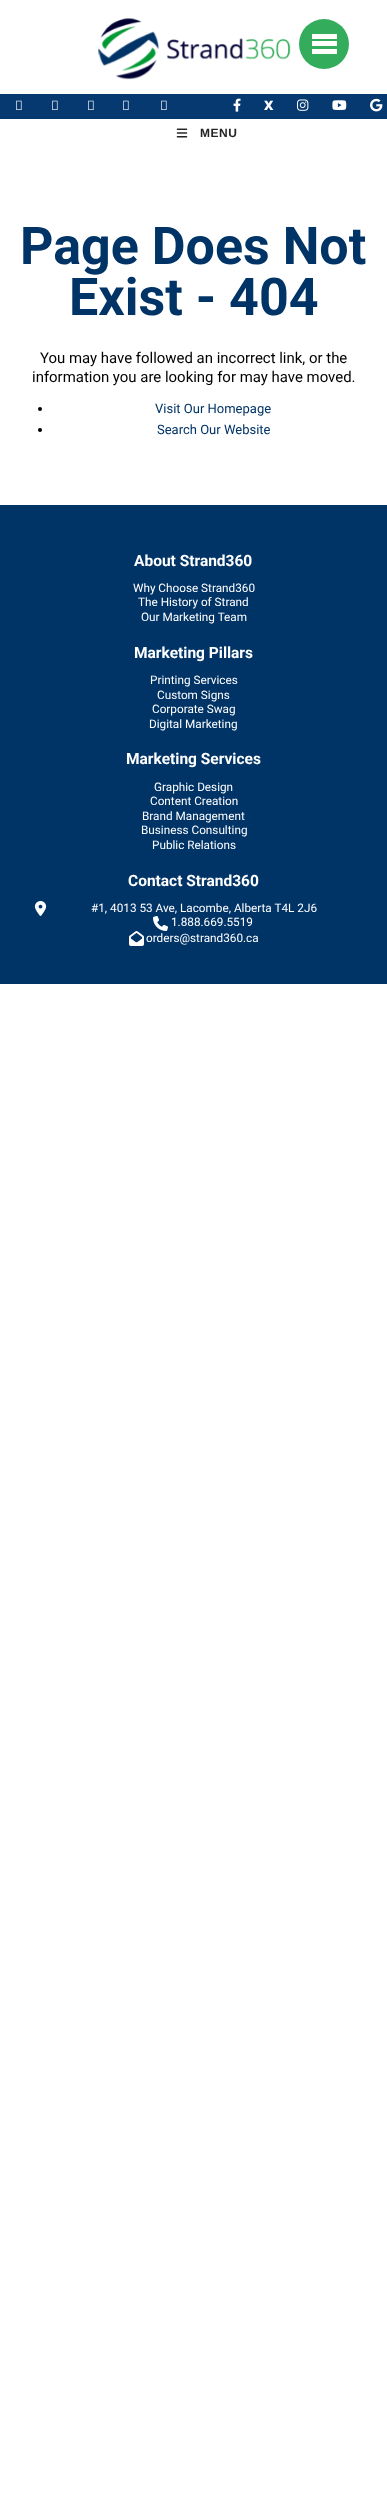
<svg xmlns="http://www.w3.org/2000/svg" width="387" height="2513">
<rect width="100%" height="100%" fill="#fff"/>
<circle cx="324" cy="44" r="25" fill="#33ad5c"/>
<rect x="312" y="34" width="25" height="5" fill="#fff"/>
<rect x="312" y="41" width="25" height="5" fill="#fff"/>
<rect x="312" y="49" width="25" height="5" fill="#fff"/>
<rect y="94" width="387" height="25" fill="#063970"/>
<image x="16" y="100" width="6" height="10" href="media/1.png"/>
<image x="52" y="100" width="6" height="10" href="media/1.png"/>
<image x="88" y="100" width="6" height="10" href="media/1.png"/>
<image x="123" y="100" width="6" height="10" href="media/1.png"/>
<image x="161" y="100" width="6" height="10" href="media/1.png"/>
<image x="233" y="98" width="8" height="14" href="media/2.png"/>
<text x="264" y="110" style="font-family:Noto Sans;font-size:13px;font-weight:900;fill:#fff">X</text>
<image x="297" y="99" width="12" height="12" href="media/3.png"/>
<image x="332" y="100" width="15" height="10" href="media/4.png"/>
<image x="370" y="98" width="13" height="14" href="media/5.png"/>
<image x="98" y="18" width="193" height="62" href="media/6.png"/>
<image x="176" y="128" width="12" height="10" href="media/7.png"/>
<text x="200" y="137" style="font-family:Liberation Sans;font-size:12px;font-weight:bold;letter-spacing:0.5px;fill:#242424">MENU</text>
<text x="20" y="264" style="font-family:Roboto;font-size:52px;font-weight:bold;fill:#036">Page Does Not</text>
<text x="69" y="315" style="font-family:Roboto;font-size:52px;font-weight:bold;fill:#036">Exist - 404</text>
<text x="40" y="363" style="font-family:Roboto;font-size:14.95px;fill:#000">You may have followed an incorrect link, or the</text>
<text x="32" y="382" style="font-family:Roboto;font-size:14.95px;fill:#000">information you are looking for may have moved.</text>
<circle cx="40" cy="409" r="2" fill="#000"/>
<text x="155" y="413" style="font-family:Roboto;font-size:13px;fill:#036">Visit Our Homepage</text>
<circle cx="40" cy="430" r="2" fill="#000"/>
<text x="157" y="434" style="font-family:Roboto;font-size:13px;fill:#036">Search Our Website</text>
<rect y="505" width="387" height="479" fill="#036"/>
<text x="134" y="566" style="font-family:Roboto;font-size:15.5px;font-weight:bold;fill:#fff">About Strand360</text>
<text x="133" y="592" style="font-family:Roboto;font-size:11.75px;fill:#fff">Why Choose Strand360</text>
<text x="138" y="606" style="font-family:Roboto;font-size:11.75px;fill:#fff">The History of Strand</text>
<text x="141" y="621" style="font-family:Roboto;font-size:11.75px;fill:#fff">Our Marketing Team</text>
<text x="134" y="658" style="font-family:Roboto;font-size:15.5px;font-weight:bold;fill:#fff">Marketing Pillars</text>
<text x="150" y="684" style="font-family:Roboto;font-size:11.75px;fill:#fff">Printing Services</text>
<text x="157" y="699" style="font-family:Roboto;font-size:11.75px;fill:#fff">Custom Signs</text>
<text x="152" y="713" style="font-family:Roboto;font-size:11.75px;fill:#fff">Corporate Swag</text>
<text x="149" y="728" style="font-family:Roboto;font-size:11.75px;fill:#fff">Digital Marketing</text>
<text x="126" y="764" style="font-family:Roboto;font-size:15.5px;font-weight:bold;fill:#fff">Marketing Services</text>
<text x="154" y="791" style="font-family:Roboto;font-size:11.75px;fill:#fff">Graphic Design</text>
<text x="150" y="805" style="font-family:Roboto;font-size:11.75px;fill:#fff">Content Creation</text>
<text x="142" y="820" style="font-family:Roboto;font-size:11.75px;fill:#fff">Brand Management</text>
<text x="141" y="834" style="font-family:Roboto;font-size:11.75px;fill:#fff">Business Consulting</text>
<text x="152" y="849" style="font-family:Roboto;font-size:11.75px;fill:#fff">Public Relations</text>
<text x="128" y="886" style="font-family:Roboto;font-size:15.5px;font-weight:bold;fill:#fff">Contact Strand360</text>
<image x="34" y="901" width="13" height="15" href="media/8.png"/>
<text x="91" y="912" style="font-family:Roboto;font-size:11.75px;fill:#fff">#1, 4013 53 Ave, Lacombe, Alberta T4L 2J6</text>
<image x="153" y="916" width="15" height="15" href="media/9.png"/>
<text x="171" y="926" style="font-family:Roboto;font-size:11.75px;fill:#fff">1.888.669.5519</text>
<image x="129" y="931" width="15" height="15" href="media/10.png"/>
<text x="146" y="942" style="font-family:Roboto;font-size:11.75px;fill:#fff">orders@strand360.ca</text>
</svg>
